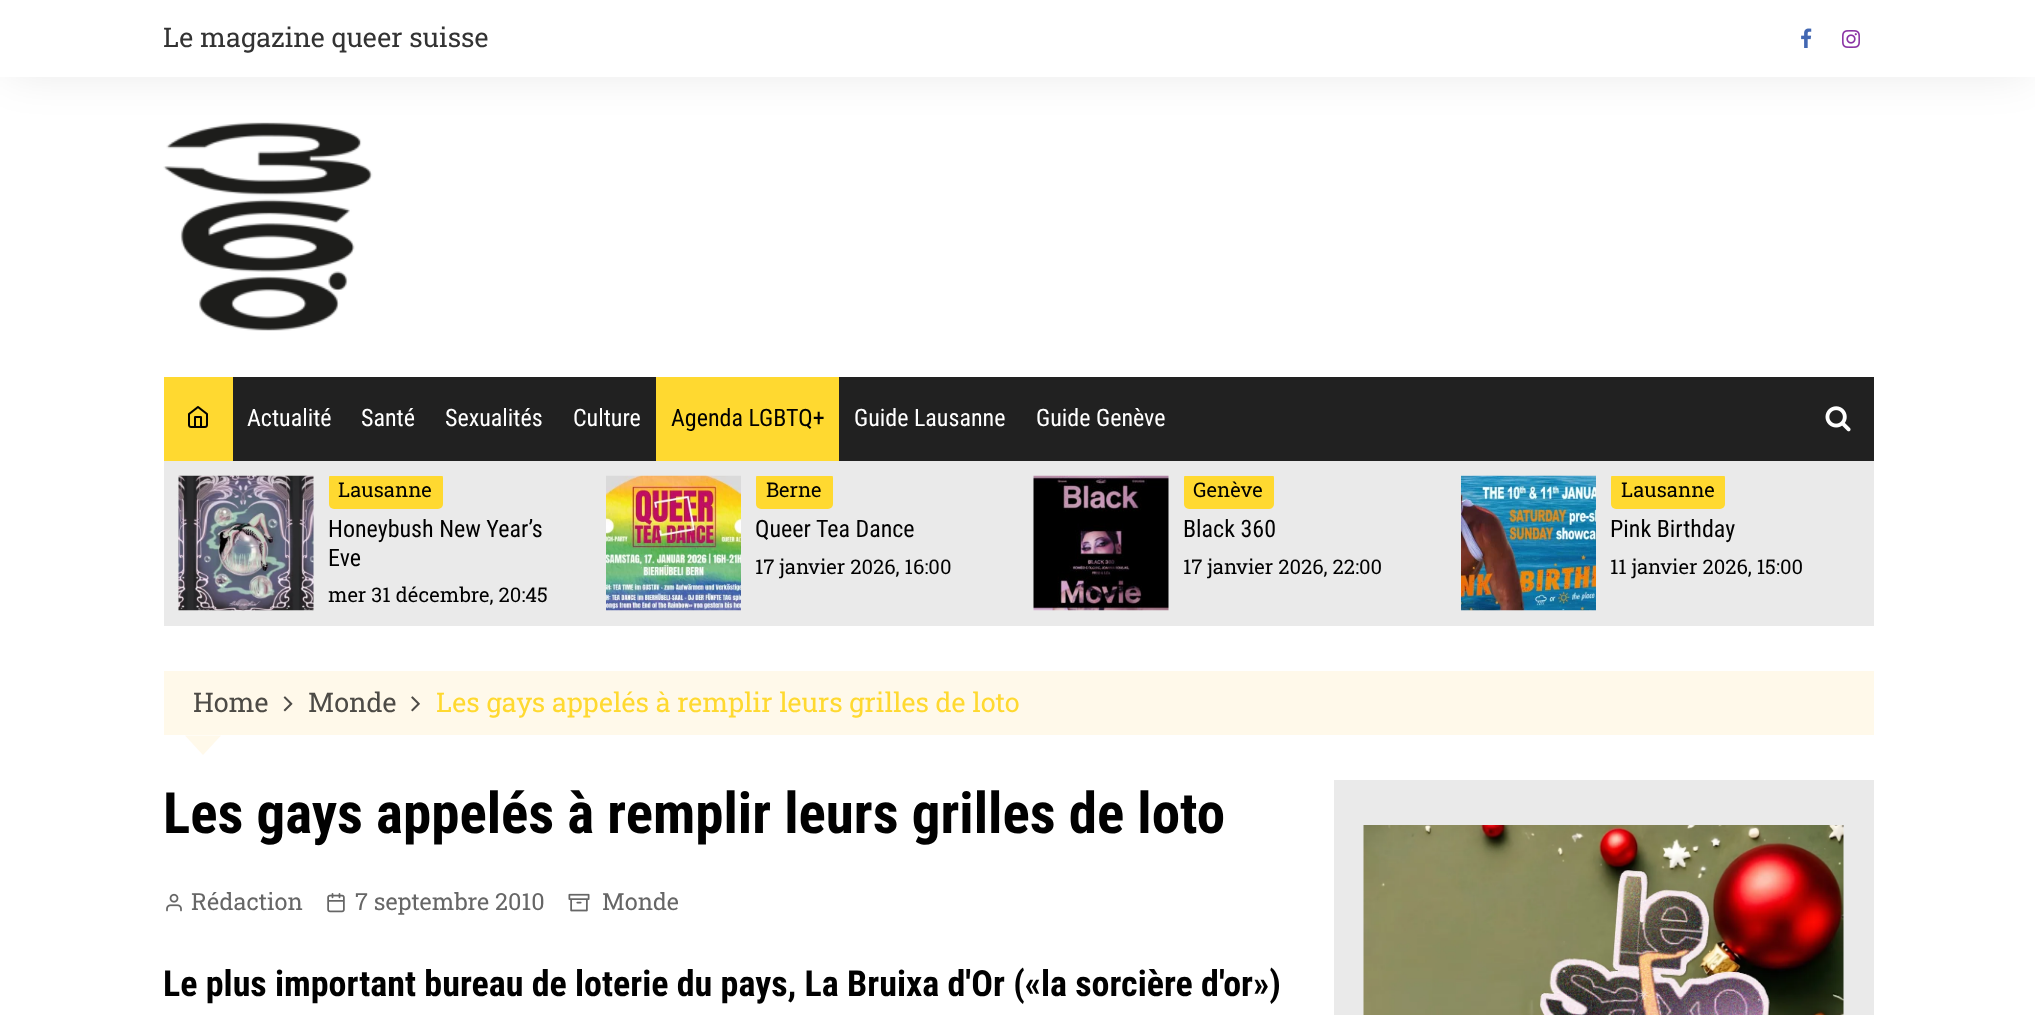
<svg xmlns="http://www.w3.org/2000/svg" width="2035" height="1015">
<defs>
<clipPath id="clip1"><rect x="164" y="476" width="427" height="135"/></clipPath>
<clipPath id="clip2"><rect x="591" y="476" width="428" height="135"/></clipPath>
<clipPath id="clip3"><rect x="1019" y="476" width="427" height="135"/></clipPath>
<clipPath id="clip4"><rect x="1446" y="476" width="428" height="135"/></clipPath>
</defs>
<rect width="100%" height="100%" fill="#fff"/>
<rect x="8" y="11" width="2020" height="61" fill="#0000001a" filter="blur(22.5px)"/>
<rect width="2035" height="77" fill="#fff"/>
<text x="163" y="47" style="font-family:Roboto Slab;font-size:27px;fill:#333">Le magazine queer suisse</text>
<image x="1801" y="28" width="11" height="20" href="media/1.png"/>
<image x="1842" y="30" width="18" height="18" href="media/2.png"/>
<image x="163" y="122" width="210" height="209" href="media/3.png"/>
<rect x="233" y="377" width="1641" height="84" fill="#212121"/>
<rect x="164" y="377" width="69" height="84" fill="#ffd930"/>
<image x="188" y="406" width="20" height="22" href="media/4.png"/>
<text x="247" y="426" style="font-family:Roboto Condensed;font-size:24px;fill:#fff">Actualité</text>
<text x="361" y="426" style="font-family:Roboto Condensed;font-size:24px;fill:#fff">Santé</text>
<text x="445" y="426" style="font-family:Roboto Condensed;font-size:24px;fill:#fff">Sexualités</text>
<text x="573" y="426" style="font-family:Roboto Condensed;font-size:24px;fill:#fff">Culture</text>
<rect x="656" y="377" width="183" height="84" fill="#ffd930"/>
<text x="671" y="426" style="font-family:Roboto Condensed;font-size:24px;fill:#010101">Agenda LGBTQ+</text>
<text x="854" y="426" style="font-family:Roboto Condensed;font-size:24px;fill:#fff">Guide Lausanne</text>
<text x="1036" y="426" style="font-family:Roboto Condensed;font-size:24px;fill:#fff">Guide Genève</text>
<image x="1825" y="406" width="26" height="26" href="media/5.png"/>
<rect x="164" y="461" width="1710" height="165" fill="#eaeaea"/>
<image x="178" y="475" width="136" height="136" href="media/6.png"/>
<g clip-path="url(#clip1)">
<rect x="329" y="473" width="114" height="36" rx="5" fill="#ffd930"/>
</g>
<text x="338" y="497" style="font-family:Roboto Slab;font-size:20.25px;fill:#010101">Lausanne</text>
<text x="328" y="537" style="font-family:Roboto Condensed;font-size:24px;fill:#010101">Honeybush New Year’s</text>
<text x="328" y="566" style="font-family:Roboto Condensed;font-size:24px;fill:#010101">Eve</text>
<text x="328" y="602" style="font-family:Roboto Slab;font-size:20.25px;fill:#010101">mer 31 décembre, 20:45</text>
<image x="606" y="475" width="135" height="136" href="media/7.png"/>
<g clip-path="url(#clip2)">
<rect x="756" y="473" width="77" height="36" rx="5" fill="#ffd930"/>
</g>
<text x="766" y="497" style="font-family:Roboto Slab;font-size:20.25px;fill:#010101">Berne</text>
<text x="755" y="537" style="font-family:Roboto Condensed;font-size:24px;fill:#010101">Queer Tea Dance</text>
<text x="755" y="574" style="font-family:Roboto Slab;font-size:20.25px;fill:#010101">17 janvier 2026, 16:00</text>
<image x="1033" y="475" width="136" height="136" href="media/8.png"/>
<g clip-path="url(#clip3)">
<rect x="1184" y="473" width="90" height="36" rx="5" fill="#ffd930"/>
</g>
<text x="1193" y="497" style="font-family:Roboto Slab;font-size:20.25px;fill:#010101">Genève</text>
<text x="1183" y="537" style="font-family:Roboto Condensed;font-size:24px;fill:#010101">Black 360</text>
<text x="1183" y="574" style="font-family:Roboto Slab;font-size:20.25px;fill:#010101">17 janvier 2026, 22:00</text>
<image x="1461" y="475" width="135" height="136" href="media/9.png"/>
<g clip-path="url(#clip4)">
<rect x="1611" y="473" width="114" height="36" rx="5" fill="#ffd930"/>
</g>
<text x="1621" y="497" style="font-family:Roboto Slab;font-size:20.25px;fill:#010101">Lausanne</text>
<text x="1610" y="537" style="font-family:Roboto Condensed;font-size:24px;fill:#010101">Pink Birthday</text>
<text x="1610" y="574" style="font-family:Roboto Slab;font-size:20.25px;fill:#010101">11 janvier 2026, 15:00</text>
<rect x="164" y="671" width="1710" height="64" fill="#fff9ea"/>
<text x="193" y="712" style="font-family:Roboto Slab;font-size:27px;fill:#4d4b46">Home</text>
<image x="283" y="696" width="10" height="16" href="media/10.png"/>
<text x="308" y="712" style="font-family:Roboto Slab;font-size:27px;fill:#4d4b46">Monde</text>
<image x="411" y="696" width="9" height="16" href="media/11.png"/>
<text x="436" y="712" style="font-family:Roboto Slab;font-size:27px;fill:#ffd930">Les gays appelés à remplir leurs grilles de loto</text>
<path d="M185 735.5h36l-18 19.5z" fill="#fff9ea"/>
<text x="163" y="833" style="font-family:Roboto Condensed;font-size:57px;font-weight:bold;fill:#010101">Les gays appelés à remplir leurs grilles de loto</text>
<image x="166" y="893" width="16" height="19" href="media/12.png"/>
<text x="191" y="910" style="font-family:Roboto Slab;font-size:23.5px;fill:#666">Rédaction</text>
<image x="327" y="893" width="18" height="20" href="media/13.png"/>
<text x="355" y="910" style="font-family:Roboto Slab;font-size:23.5px;fill:#666">7 septembre 2010</text>
<image x="568" y="893" width="22" height="19" href="media/14.png"/>
<text x="602" y="910" style="font-family:Roboto Slab;font-size:23.5px;fill:#666">Monde</text>
<text x="163" y="996" style="font-family:Roboto Condensed;font-size:36px;font-weight:bold;fill:#010101">Le plus important bureau de loterie du pays, La Bruixa d'Or («la sorcière d'or»)</text>
<rect x="1334" y="780" width="540" height="235" fill="#eaeaea"/>
<image x="1363" y="825" width="481" height="190" href="media/15.png"/>
</svg>
